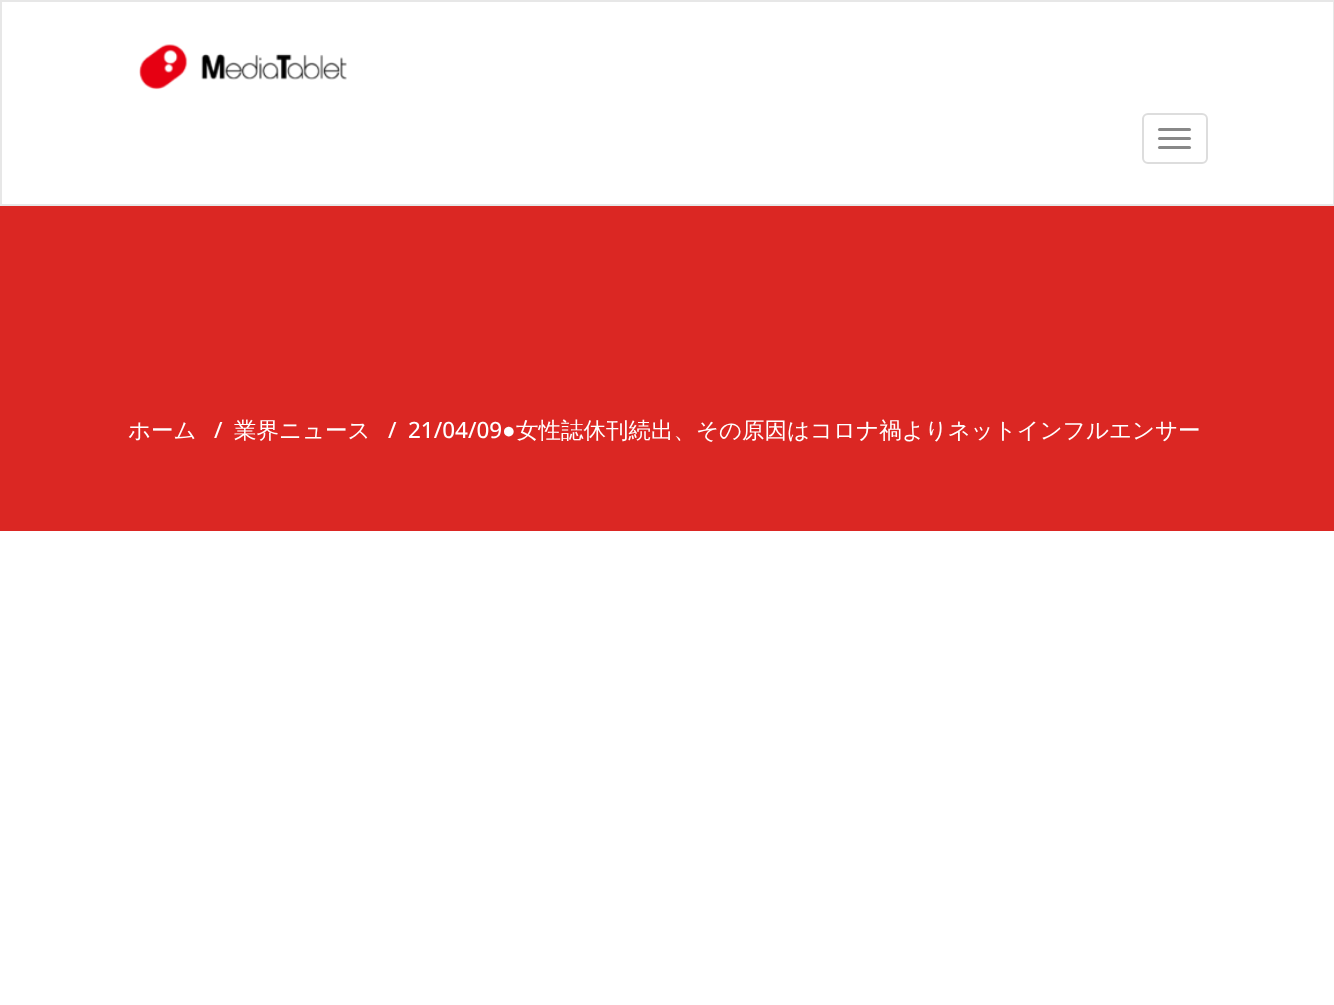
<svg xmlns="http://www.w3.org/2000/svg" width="1334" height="1005">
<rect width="100%" height="100%" fill="#fff"/>
<rect x="1" y="1" width="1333" height="204" fill="none" stroke="#e7e7e7" stroke-width="2"/>
<image x="139" y="44" width="208" height="46" href="media/1.png"/>
<rect x="1143" y="114" width="64" height="49" rx="5" fill="none" stroke="#ddd" stroke-width="2"/>
<rect x="1158" y="128" width="33" height="3" rx="1.5" fill="#888"/>
<rect x="1158" y="137" width="33" height="3" rx="1.5" fill="#888"/>
<rect x="1158" y="146" width="33" height="3" rx="1.5" fill="#888"/>
<rect y="206" width="1334" height="325" fill="#db2723"/>
<text x="128" y="438" style="font-family:WenQuanYi Zen Hei;font-size:22.5px;font-weight:500;fill:#fff">ホーム</text>
<text x="214" y="438" style="font-family:Open Sans;font-size:22.5px;font-weight:500;fill:#fff">/</text>
<text x="234" y="438" style="font-family:WenQuanYi Zen Hei;font-size:22.5px;font-weight:500;fill:#fff">業界ニュース</text>
<text x="388" y="438" style="font-family:Open Sans;font-size:22.5px;font-weight:500;fill:#fff">/</text>
<text x="408" y="438" style="font-family:Open Sans;font-size:22.5px;font-weight:500;fill:#fff">21/04/09</text>
<text x="502" y="438" style="font-family:Liberation Serif;font-size:22.5px;fill:#fff">●</text>
<text x="516" y="438" style="font-family:WenQuanYi Zen Hei;font-size:22.5px;font-weight:500;fill:#fff">女性誌休刊続出、その原因はコロナ禍よりネットインフルエンサー</text>
</svg>
